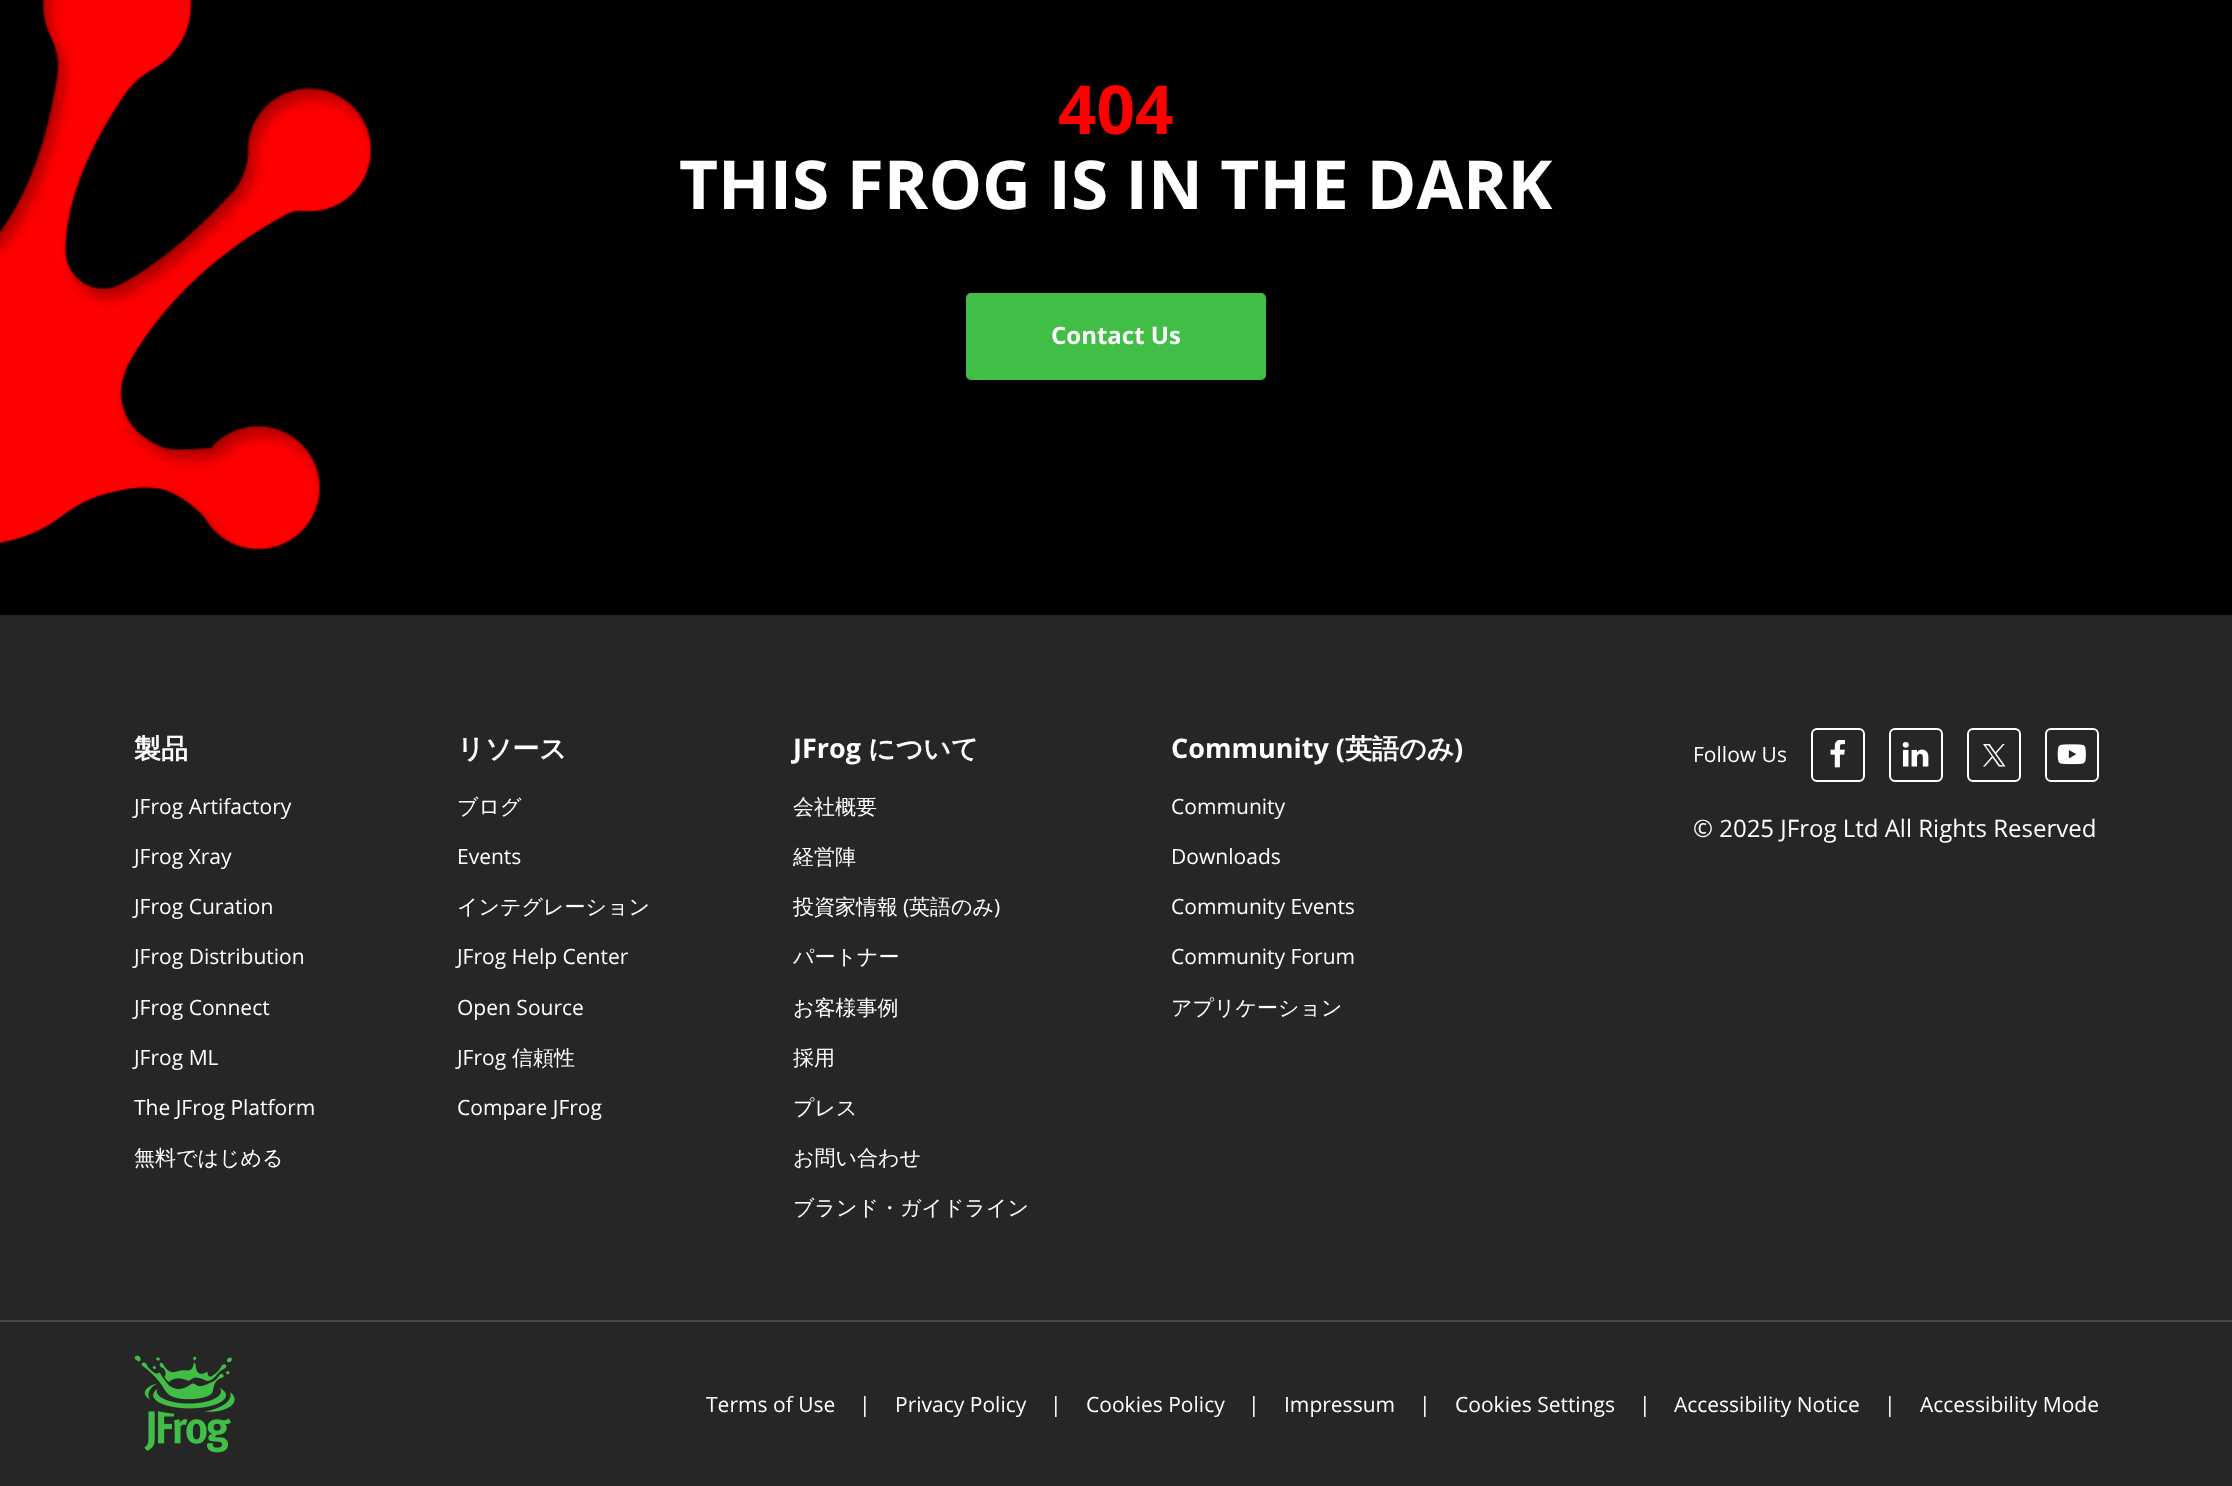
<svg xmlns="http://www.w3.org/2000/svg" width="2232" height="1486">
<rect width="100%" height="100%" fill="#262626"/>
<rect width="2232" height="615" fill="#000"/>
<image x="0" y="0" width="372" height="550" href="media/1.png"/>
<text x="1058" y="134" style="font-family:Open Sans;font-size:67.5px;font-weight:bold;fill:#f00">404</text>
<text x="679" y="209" style="font-family:Open Sans;font-size:67.5px;font-weight:bold;fill:#fff">THIS FROG IS IN THE DARK</text>
<rect x="966" y="293" width="300" height="87" rx="5" fill="#40be46"/>
<text x="1051" y="344" style="font-family:Open Sans;font-size:24px;font-weight:bold;fill:#fff">Contact Us</text>
<text x="134" y="758" style="font-family:WenQuanYi Zen Hei;font-size:27px;font-weight:bold;fill:#fff">製品</text>
<text x="134" y="814" style="font-family:Open Sans;font-size:21px;fill:#fff">JFrog Artifactory</text>
<text x="134" y="864" style="font-family:Open Sans;font-size:21px;fill:#fff">JFrog Xray</text>
<text x="134" y="914" style="font-family:Open Sans;font-size:21px;fill:#fff">JFrog Curation</text>
<text x="134" y="964" style="font-family:Open Sans;font-size:21px;fill:#fff">JFrog Distribution</text>
<text x="134" y="1015" style="font-family:Open Sans;font-size:21px;fill:#fff">JFrog Connect</text>
<text x="134" y="1065" style="font-family:Open Sans;font-size:21px;fill:#fff">JFrog ML</text>
<text x="134" y="1115" style="font-family:Open Sans;font-size:21px;fill:#fff">The JFrog Platform</text>
<text x="134" y="1165" style="font-family:WenQuanYi Zen Hei;font-size:21px;font-weight:500;fill:#fff">無料ではじめる</text>
<text x="457" y="758" style="font-family:WenQuanYi Zen Hei;font-size:27px;font-weight:bold;fill:#fff">リソース</text>
<text x="457" y="814" style="font-family:WenQuanYi Zen Hei;font-size:21px;font-weight:500;fill:#fff">ブログ</text>
<text x="457" y="864" style="font-family:Open Sans;font-size:21px;fill:#fff">Events</text>
<text x="457" y="914" style="font-family:WenQuanYi Zen Hei;font-size:21px;font-weight:500;fill:#fff">インテグレーション</text>
<text x="457" y="964" style="font-family:Open Sans;font-size:21px;fill:#fff">JFrog Help Center</text>
<text x="457" y="1015" style="font-family:Open Sans;font-size:21px;fill:#fff">Open Source</text>
<text x="457" y="1065" style="font-family:Open Sans;font-size:21px;fill:#fff">JFrog</text>
<text x="512" y="1065" style="font-family:WenQuanYi Zen Hei;font-size:21px;font-weight:500;fill:#fff">信頼性</text>
<text x="457" y="1115" style="font-family:Open Sans;font-size:21px;fill:#fff">Compare JFrog</text>
<text x="793" y="758" style="font-family:Open Sans;font-size:27px;font-weight:bold;fill:#fff">JFrog</text>
<text x="868" y="758" style="font-family:WenQuanYi Zen Hei;font-size:27px;font-weight:bold;fill:#fff">について</text>
<text x="793" y="814" style="font-family:WenQuanYi Zen Hei;font-size:21px;font-weight:500;fill:#fff">会社概要</text>
<text x="793" y="864" style="font-family:WenQuanYi Zen Hei;font-size:21px;font-weight:500;fill:#fff">経営陣</text>
<text x="793" y="914" style="font-family:WenQuanYi Zen Hei;font-size:21px;font-weight:500;fill:#fff">投資家情報</text>
<text x="903" y="914" style="font-family:Open Sans;font-size:21px;fill:#fff">(</text>
<text x="909" y="914" style="font-family:WenQuanYi Zen Hei;font-size:21px;font-weight:500;fill:#fff">英語のみ</text>
<text x="994" y="914" style="font-family:Open Sans;font-size:21px;fill:#fff">)</text>
<text x="793" y="964" style="font-family:WenQuanYi Zen Hei;font-size:21px;font-weight:500;fill:#fff">パートナー</text>
<text x="793" y="1015" style="font-family:WenQuanYi Zen Hei;font-size:21px;font-weight:500;fill:#fff">お客様事例</text>
<text x="793" y="1065" style="font-family:WenQuanYi Zen Hei;font-size:21px;font-weight:500;fill:#fff">採用</text>
<text x="793" y="1115" style="font-family:WenQuanYi Zen Hei;font-size:21px;font-weight:500;fill:#fff">プレス</text>
<text x="793" y="1165" style="font-family:WenQuanYi Zen Hei;font-size:21px;font-weight:500;fill:#fff">お問い合わせ</text>
<text x="793" y="1215" style="font-family:WenQuanYi Zen Hei;font-size:21px;font-weight:500;fill:#fff">ブランド・ガイドライン</text>
<text x="1171" y="758" style="font-family:Open Sans;font-size:27px;font-weight:bold;fill:#fff">Community (</text>
<text x="1345" y="758" style="font-family:WenQuanYi Zen Hei;font-size:27px;font-weight:bold;fill:#fff">英語のみ</text>
<text x="1454" y="758" style="font-family:Open Sans;font-size:27px;font-weight:bold;fill:#fff">)</text>
<text x="1171" y="814" style="font-family:Open Sans;font-size:21px;fill:#fff">Community</text>
<text x="1171" y="864" style="font-family:Open Sans;font-size:21px;fill:#fff">Downloads</text>
<text x="1171" y="914" style="font-family:Open Sans;font-size:21px;fill:#fff">Community Events</text>
<text x="1171" y="964" style="font-family:Open Sans;font-size:21px;fill:#fff">Community Forum</text>
<text x="1171" y="1015" style="font-family:WenQuanYi Zen Hei;font-size:21px;font-weight:500;fill:#fff">アプリケーション</text>
<text x="1693" y="762" style="font-family:Open Sans;font-size:21px;fill:#fff">Follow Us</text>
<rect x="1812" y="729" width="52" height="52" rx="5" fill="none" stroke="#fff" stroke-width="2"/>
<image x="1830" y="740" width="15" height="28" href="media/2.png"/>
<rect x="1890" y="729" width="52" height="52" rx="5" fill="none" stroke="#fff" stroke-width="2"/>
<image x="1902" y="742" width="27" height="25" href="media/3.png"/>
<rect x="1968" y="729" width="52" height="52" rx="5" fill="none" stroke="#fff" stroke-width="2"/>
<image x="1983" y="744" width="23" height="23" href="media/4.png"/>
<rect x="2046" y="729" width="52" height="52" rx="5" fill="none" stroke="#fff" stroke-width="2"/>
<image x="2057" y="744" width="29" height="21" href="media/5.png"/>
<text x="1693" y="837" style="font-family:Open Sans;font-size:24px;fill:#fff">© 2025 JFrog Ltd All Rights Reserved</text>
<rect y="1320" width="2232" height="2" fill="#494949"/>
<image x="134" y="1355" width="101" height="98" href="media/6.png"/>
<text x="706" y="1412" style="font-family:Open Sans;font-size:21px;fill:#fff">Terms of Use</text>
<text x="859" y="1412" style="font-family:Open Sans;font-size:21px;fill:#fff">|</text>
<text x="895" y="1412" style="font-family:Open Sans;font-size:21px;fill:#fff">Privacy Policy</text>
<text x="1050" y="1412" style="font-family:Open Sans;font-size:21px;fill:#fff">|</text>
<text x="1086" y="1412" style="font-family:Open Sans;font-size:21px;fill:#fff">Cookies Policy</text>
<text x="1248" y="1412" style="font-family:Open Sans;font-size:21px;fill:#fff">|</text>
<text x="1284" y="1412" style="font-family:Open Sans;font-size:21px;fill:#fff">Impressum</text>
<text x="1419" y="1412" style="font-family:Open Sans;font-size:21px;fill:#fff">|</text>
<text x="1455" y="1412" style="font-family:Open Sans;font-size:21px;fill:#fff">Cookies Settings</text>
<text x="1639" y="1412" style="font-family:Open Sans;font-size:21px;fill:#fff">|</text>
<text x="1674" y="1412" style="font-family:Open Sans;font-size:21px;fill:#fff">Accessibility Notice</text>
<text x="1884" y="1412" style="font-family:Open Sans;font-size:21px;fill:#fff">|</text>
<text x="1920" y="1412" style="font-family:Open Sans;font-size:21px;fill:#fff">Accessibility Mode</text>
</svg>
